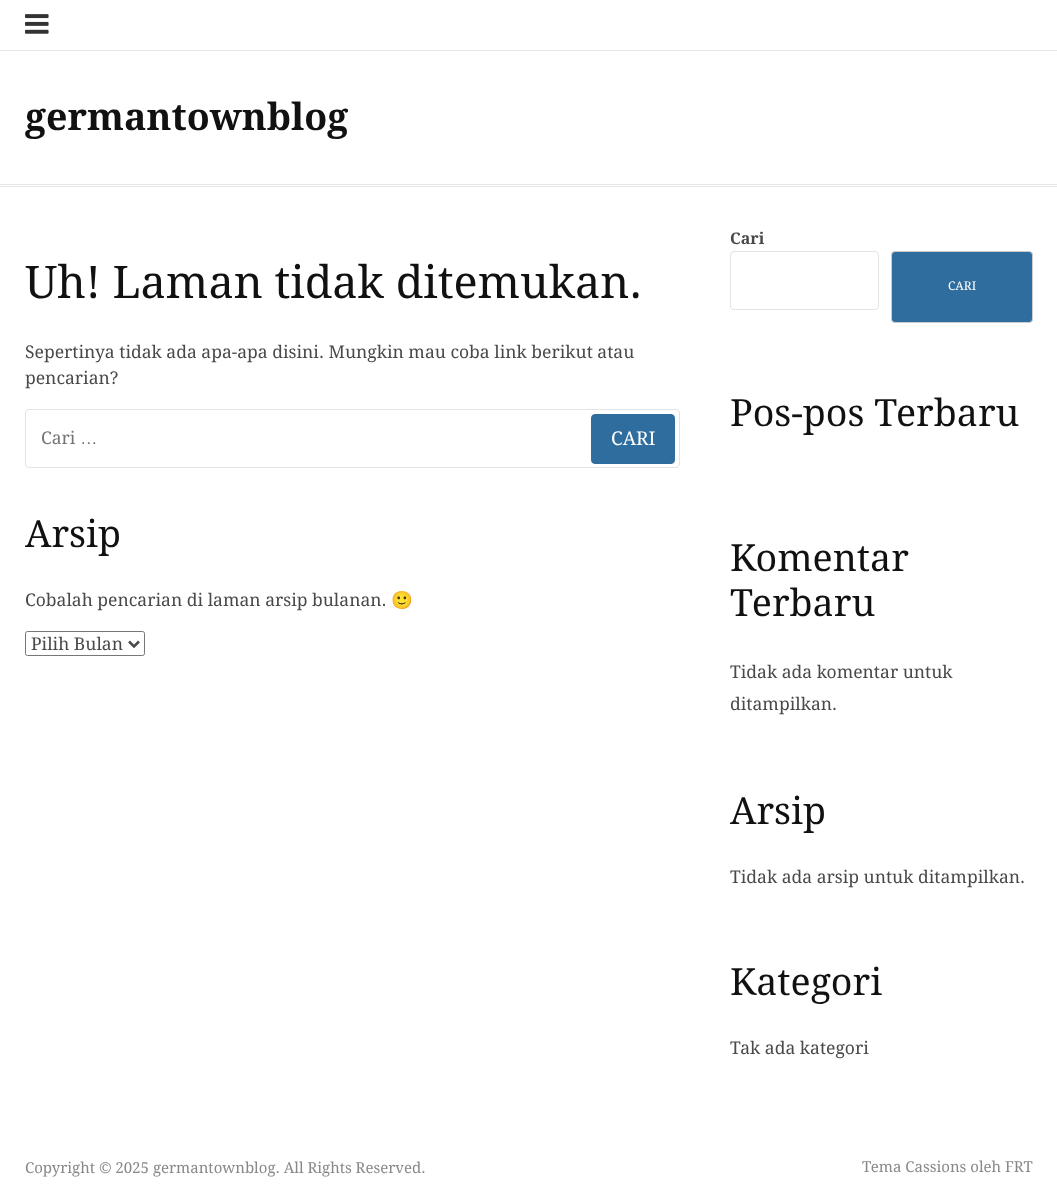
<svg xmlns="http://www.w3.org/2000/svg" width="1057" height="1200">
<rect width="100%" height="100%" fill="#fff"/>
<rect y="184" width="1057" height="1" fill="#e5e5e5"/>
<rect y="186" width="1057" height="1" fill="#e5e5e5"/>
<rect y="50" width="1057" height="1" fill="#e5e5e5"/>
<image x="25" y="14" width="24" height="20" href="media/1.png"/>
<text x="25" y="130" style="font-family:Droid Serif;font-size:37.5px;font-weight:bold;fill:#111">germantownblog</text>
<text x="25" y="298" style="font-family:Droid Serif;font-size:45px;fill:#111">Uh! Laman tidak ditemukan.</text>
<text x="25" y="358" style="font-family:Droid Serif;font-size:17.5px;fill:#494949">Sepertinya tidak ada apa-apa disini. Mungkin mau coba link berikut atau</text>
<text x="25" y="384" style="font-family:Droid Serif;font-size:17.5px;fill:#494949">pencarian?</text>
<rect x="25.5" y="409.5" width="654" height="58" rx="3.5" fill="none" stroke="#e3e3e3"/>
<text x="41" y="444" style="font-family:Droid Serif;font-size:17.5px;fill:#757575">Cari</text>
<text x="80" y="444" style="font-family:Liberation Sans;font-size:17.5px;fill:#757575">…</text>
<rect x="591.5" y="414.5" width="83" height="49" rx="3.5" fill="#2e6d9d" stroke="#2e6d9d"/>
<text x="611" y="445" style="font-family:Droid Serif;font-size:19px;fill:#fff">CARI</text>
<text x="25" y="547" style="font-family:Droid Serif;font-size:37.5px;fill:#111">Arsip</text>
<text x="25" y="606" style="font-family:Droid Serif;font-size:17.5px;fill:#494949">Cobalah pencarian di laman arsip bulanan.</text>
<text x="391" y="606" style="font-family:Noto Color Emoji;font-size:17.5px;fill:#494949">🙂</text>
<rect x="25.5" y="631.5" width="119" height="24" rx="2" fill="none" stroke="#767676"/>
<path d="M129 641.5l5 5l5-5" fill="none" stroke="#494949" stroke-width="2.5"/>
<text x="31" y="650" style="font-family:Droid Serif;font-size:17.5px;fill:#494949">Pilih Bulan</text>
<text x="730" y="244" style="font-family:Droid Serif;font-size:16px;font-weight:bold;fill:#494949">Cari</text>
<rect x="730.5" y="251.5" width="148" height="58" rx="3.5" fill="none" stroke="#e3e3e3"/>
<rect x="891.5" y="251.5" width="141" height="71" rx="3.5" fill="#2e6d9d" stroke="#ccc"/>
<text x="948" y="290" style="font-family:Droid Serif;font-size:12px;fill:#fff">CARI</text>
<text x="730" y="426" style="font-family:Droid Serif;font-size:37.5px;fill:#111">Pos-pos Terbaru</text>
<text x="730" y="571" style="font-family:Droid Serif;font-size:37.5px;fill:#111">Komentar</text>
<text x="730" y="616" style="font-family:Droid Serif;font-size:37.5px;fill:#111">Terbaru</text>
<text x="730" y="678" style="font-family:Droid Serif;font-size:17.5px;fill:#494949">Tidak ada komentar untuk</text>
<text x="730" y="710" style="font-family:Droid Serif;font-size:17.5px;fill:#494949">ditampilkan.</text>
<text x="730" y="824" style="font-family:Droid Serif;font-size:37.5px;fill:#111">Arsip</text>
<text x="730" y="883" style="font-family:Droid Serif;font-size:17.5px;fill:#494949">Tidak ada arsip untuk ditampilkan.</text>
<text x="730" y="995" style="font-family:Droid Serif;font-size:37.5px;fill:#111">Kategori</text>
<text x="730" y="1054" style="font-family:Droid Serif;font-size:17.5px;fill:#494949">Tak ada kategori</text>
<text x="25" y="1173" style="font-family:Droid Serif;font-size:15px;fill:#888">Copyright © 2025 germantownblog. All Rights Reserved.</text>
<text x="862" y="1172" style="font-family:Droid Serif;font-size:15px;fill:#888">Tema Cassions oleh FRT</text>
</svg>
